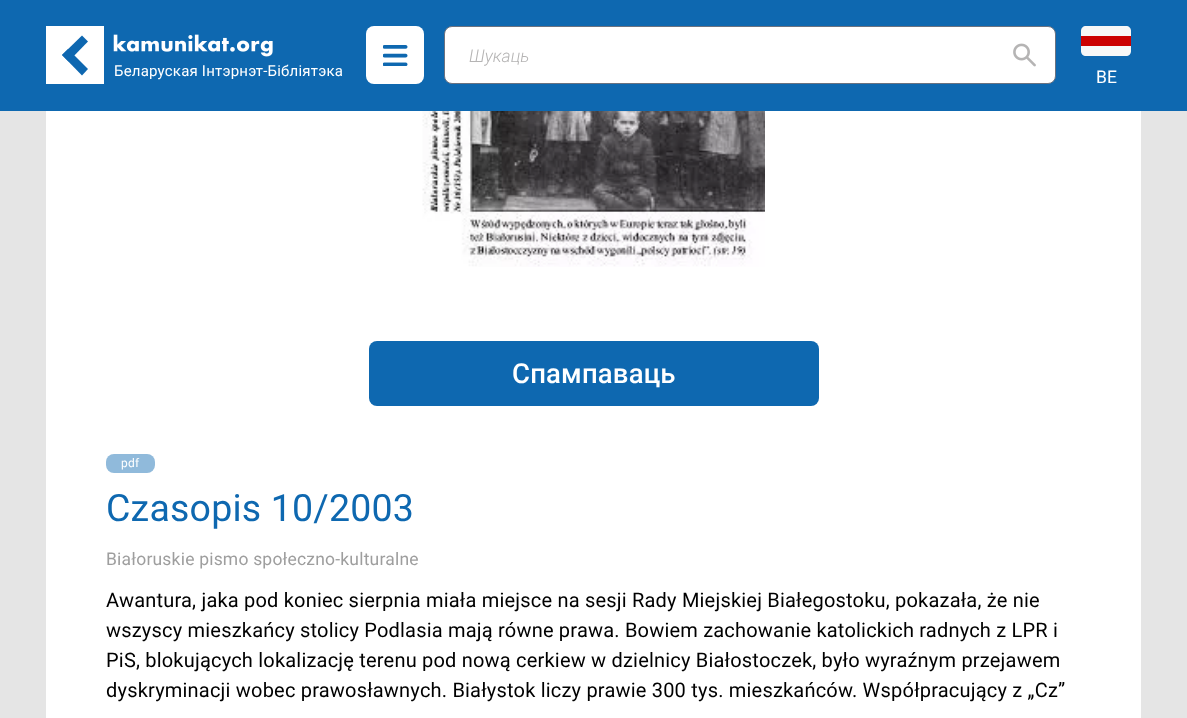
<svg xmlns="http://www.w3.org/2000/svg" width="1187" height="718">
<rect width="100%" height="100%" fill="#e5e5e5"/>
<rect width="1187" height="111" fill="#0e68b0"/>
<rect x="46" y="26" width="58" height="58" fill="#fff"/>
<path d="M62 55l6-6l20 20l-6 6.5z" fill="#0e67b0"/>
<path d="M68.5 61.5l-6.5-6.5l20-19.5l6 6z" fill="#0e67b0"/>
<rect x="366" y="26" width="58" height="58" rx="8" fill="#fff"/>
<image x="383" y="45" width="25" height="21" href="media/1.png"/>
<rect x="444.5" y="26.5" width="611" height="57" rx="7.5" fill="#fff" stroke="#6b7280"/>
<text x="469" y="62" style="font-family:Roboto;font-size:17.5px;font-weight:300;font-style:italic;fill:#b5b4b4">Шукаць</text>
<image x="1013" y="43" width="23" height="24" href="media/2.png"/>
<image x="113" y="34" width="160" height="23" href="media/3.png"/>
<text x="114" y="76" style="font-family:Roboto;font-size:15px;letter-spacing:0.2px;fill:#fff">Беларуская Інтэрнэт-Бібліятэка</text>
<path d="M1086 26h40c3 0 5 2 5 5v5h-50v-5c0-3 2-5 5-5z" fill="#f7f7f7"/>
<path d="M1081 46h50v5c0 3-2 5-5 5h-40c-3 0-5-2-5-5z" fill="#f7f7f7"/>
<rect x="1081" y="36" width="50" height="10" fill="#c00"/>
<text x="1096" y="83" style="font-family:Roboto;font-size:17.5px;letter-spacing:0.2px;fill:#fff">BE</text>
<rect x="46" y="111" width="1095" height="607" fill="#fff"/>
<image x="422" y="111" width="343" height="156" href="media/4.png"/>
<rect x="369" y="341" width="450" height="65" rx="8" fill="#0e68b0"/>
<text x="512" y="383" style="font-family:Roboto;font-size:27.5px;font-weight:500;letter-spacing:0.2px;fill:#fff">Спампаваць</text>
<rect x="106" y="454" width="49" height="19" rx="8" fill="#90badb"/>
<text x="121" y="467" style="font-family:Roboto;font-size:12px;letter-spacing:0.2px;fill:#fff">pdf</text>
<text x="106" y="521" style="font-family:Roboto;font-size:37.5px;letter-spacing:0.2px;fill:#0e68b0">Czasopis 10/2003</text>
<text x="106" y="565" style="font-family:Roboto;font-size:17.5px;letter-spacing:0.2px;fill:#9e9e9e">Białoruskie pismo społeczno-kulturalne</text>
<text x="106" y="607" style="font-family:Roboto;font-size:20px;letter-spacing:0.2px;fill:#000">Awantura, jaka pod koniec sierpnia miała miejsce na sesji Rady Miejskiej Białegostoku, pokazała, że nie</text>
<text x="106" y="637" style="font-family:Roboto;font-size:20px;letter-spacing:0.2px;fill:#000">wszyscy mieszkańcy stolicy Podlasia mają równe prawa. Bowiem zachowanie katolickich radnych z LPR i</text>
<text x="106" y="667" style="font-family:Roboto;font-size:20px;letter-spacing:0.2px;fill:#000">PiS, blokujących lokalizację terenu pod nową cerkiew w dzielnicy Białostoczek, było wyraźnym przejawem</text>
<text x="106" y="697" style="font-family:Roboto;font-size:20px;letter-spacing:0.2px;fill:#000">dyskryminacji wobec prawosławnych. Białystok liczy prawie 300 tys. mieszkańców. Współpracujący z „Cz”</text>
</svg>
